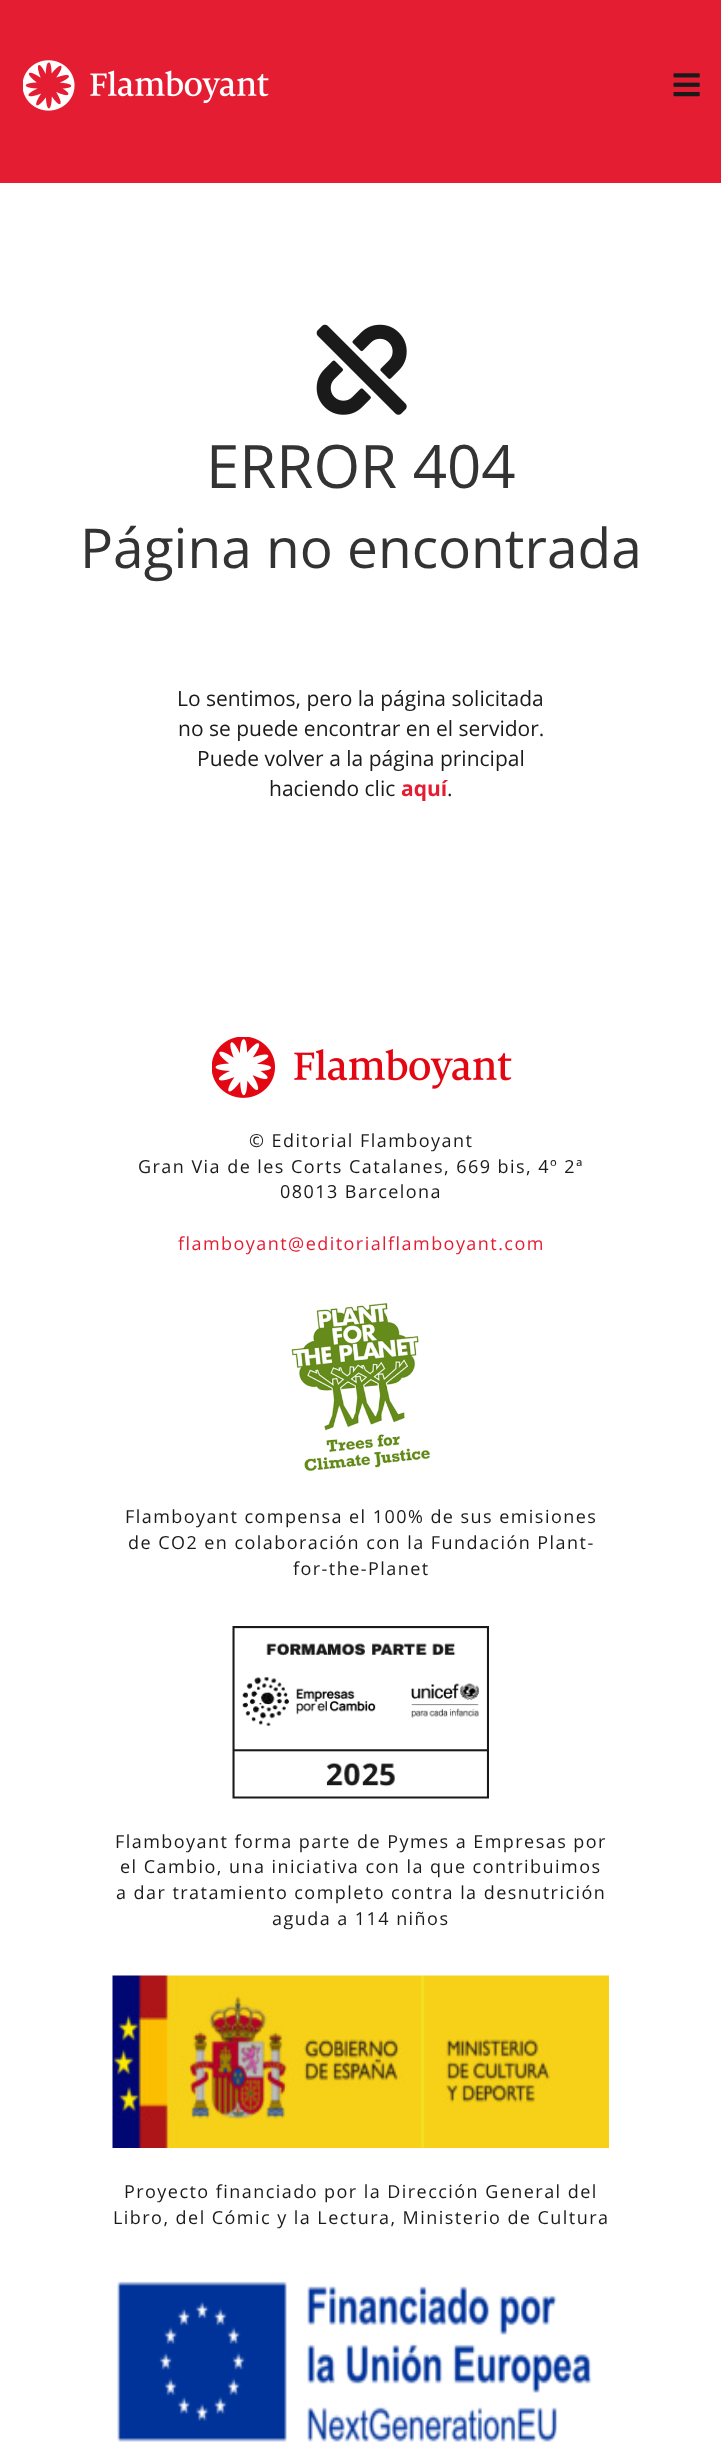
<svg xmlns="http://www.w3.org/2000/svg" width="721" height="2462">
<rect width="100%" height="100%" fill="#fff"/>
<rect width="721" height="183" fill="#e51d32"/>
<image x="23" y="60" width="246" height="51" href="media/1.png"/>
<image x="673" y="73" width="27" height="24" href="media/2.png"/>
<image x="316" y="324" width="91" height="91" href="media/3.png"/>
<text x="206" y="488" style="font-family:Open Sans;font-size:60px;fill:#333">ERROR 404</text>
<text x="80" y="568" style="font-family:Open Sans;font-size:55px;fill:#333">Página no encontrada</text>
<text x="177" y="706" style="font-family:Open Sans;font-size:21px;fill:#1a1a1a">Lo sentimos, pero la página solicitada</text>
<text x="178" y="736" style="font-family:Open Sans;font-size:21px;fill:#1a1a1a">no se puede encontrar en el servidor.</text>
<text x="197" y="766" style="font-family:Open Sans;font-size:21px;fill:#1a1a1a">Puede volver a la página principal</text>
<text x="269" y="796" style="font-family:Open Sans;font-size:21px;fill:#1a1a1a">haciendo clic</text>
<text x="401" y="796" style="font-family:Open Sans;font-size:21px;font-weight:bold;fill:#e51d32">aquí</text>
<text x="447" y="796" style="font-family:Open Sans;font-size:21px;fill:#1a1a1a">.</text>
<image x="212" y="1037" width="300" height="61" href="media/4.png"/>
<text x="249" y="1147" style="font-family:Open Sans;font-size:18px;letter-spacing:1.45px;fill:#1a1a1a">© Editorial Flamboyant</text>
<text x="138" y="1173" style="font-family:Open Sans;font-size:18px;letter-spacing:1.45px;fill:#1a1a1a">Gran Via de les Corts Catalanes, 669 bis, 4º 2ª</text>
<text x="280" y="1198" style="font-family:Open Sans;font-size:18px;letter-spacing:1.45px;fill:#1a1a1a">08013 Barcelona</text>
<text x="178" y="1250" style="font-family:Open Sans;font-size:18px;letter-spacing:1.45px;fill:#e51d32">flamboyant@editorialflamboyant.com</text>
<image x="291" y="1303" width="139" height="168" href="media/5.png"/>
<text x="125" y="1523" style="font-family:Open Sans;font-size:18px;letter-spacing:1.45px;fill:#1a1a1a">Flamboyant compensa el 100% de sus emisiones</text>
<text x="128" y="1549" style="font-family:Open Sans;font-size:18px;letter-spacing:1.45px;fill:#1a1a1a">de CO2 en colaboración con la Fundación Plant-</text>
<text x="293" y="1575" style="font-family:Open Sans;font-size:18px;letter-spacing:1.45px;fill:#1a1a1a">for-the-Planet</text>
<image x="232" y="1626" width="257" height="173" href="media/6.png"/>
<text x="115" y="1848" style="font-family:Open Sans;font-size:18px;letter-spacing:1.45px;fill:#1a1a1a">Flamboyant forma parte de Pymes a Empresas por</text>
<text x="120" y="1873" style="font-family:Open Sans;font-size:18px;letter-spacing:1.45px;fill:#1a1a1a">el Cambio, una iniciativa con la que contribuimos</text>
<text x="116" y="1899" style="font-family:Open Sans;font-size:18px;letter-spacing:1.45px;fill:#1a1a1a">a dar tratamiento completo contra la desnutrición</text>
<text x="272" y="1925" style="font-family:Open Sans;font-size:18px;letter-spacing:1.45px;fill:#1a1a1a">aguda a 114 niños</text>
<image x="112" y="1975" width="497" height="173" href="media/7.png"/>
<text x="124" y="2198" style="font-family:Open Sans;font-size:18px;letter-spacing:1.45px;fill:#1a1a1a">Proyecto financiado por la Dirección General del</text>
<text x="113" y="2224" style="font-family:Open Sans;font-size:18px;letter-spacing:1.45px;fill:#1a1a1a">Libro, del Cómic y la Lectura, Ministerio de Cultura</text>
<image x="117" y="2281" width="475" height="161" href="media/8.png"/>
</svg>
